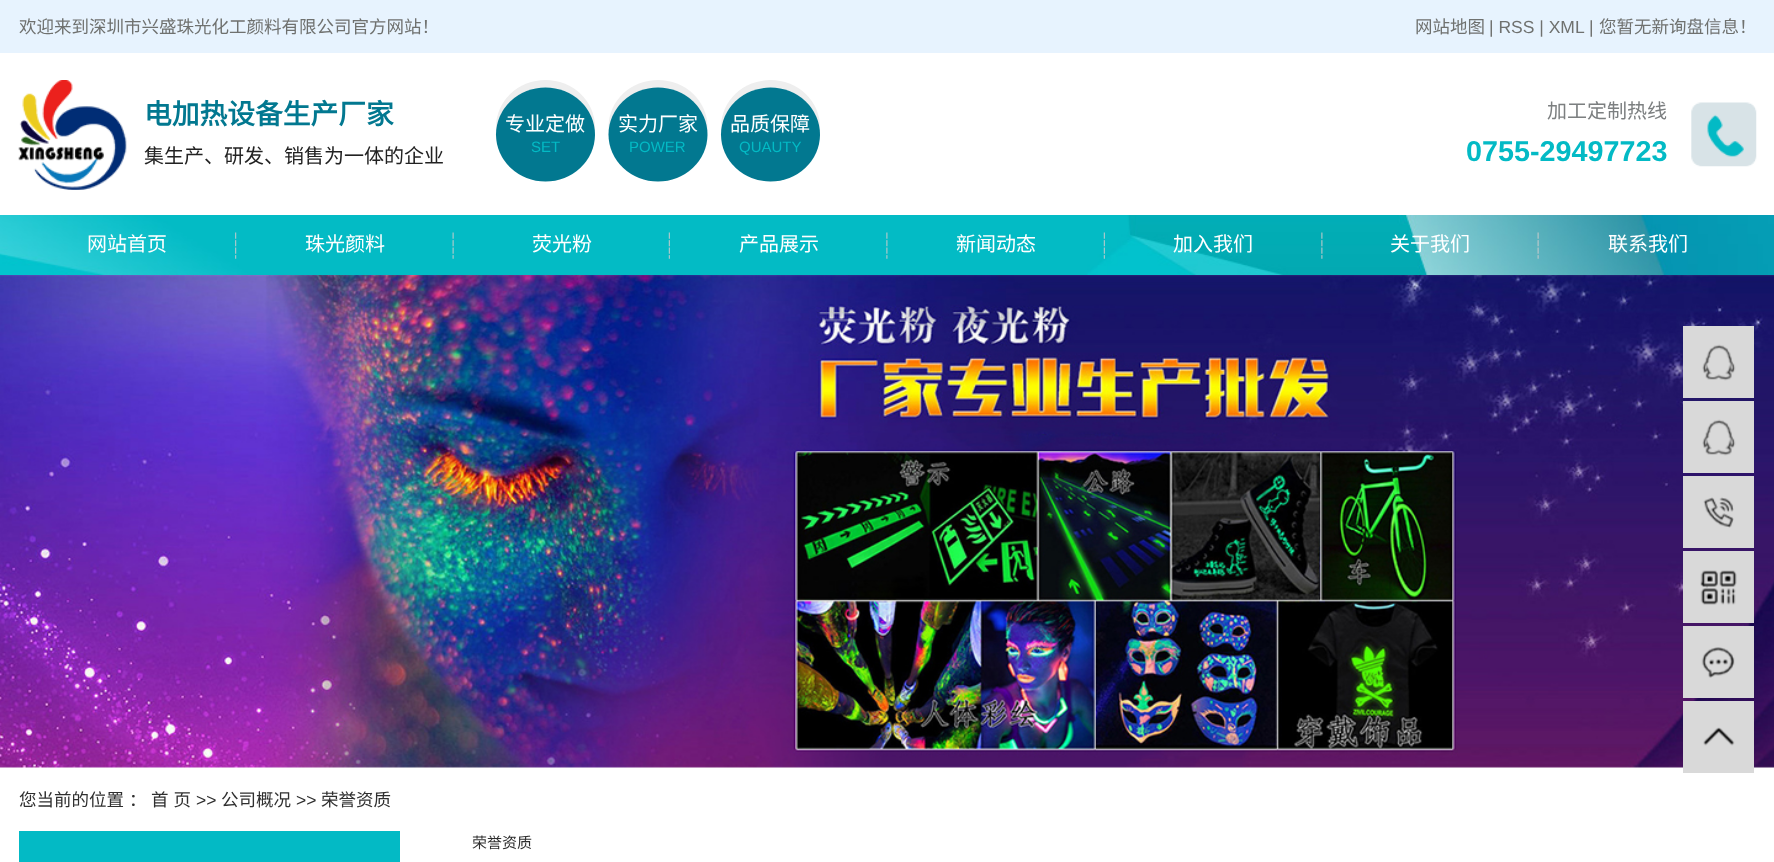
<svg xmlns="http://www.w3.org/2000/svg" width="1774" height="862">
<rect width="100%" height="100%" fill="#fff"/>
<rect width="1774" height="53" fill="#e7f3fe"/>
<text x="19" y="33" style="font-family:Noto Sans CJK SC;font-size:17.5px;fill:#6f716f">欢迎来到深圳市兴盛珠光化工颜料有限公司官方网站！</text>
<text x="1415" y="33" style="font-family:Noto Sans CJK SC;font-size:17.5px;fill:#6f716f">网站地图</text>
<text x="1489" y="33" style="font-family:Liberation Sans;font-size:17.5px;fill:#6f716f">| RSS | XML</text>
<text x="1589" y="33" style="font-family:Liberation Sans;font-size:17.5px;fill:#6f716f">|</text>
<text x="1599" y="33" style="font-family:Noto Sans CJK SC;font-size:17.5px;fill:#6f716f">您暂无新询盘信息！</text>
<image x="18" y="80" width="109" height="110" href="media/1.png"/>
<text x="144" y="124" style="font-family:Noto Sans CJK SC;font-size:27.75px;font-weight:bold;fill:#027890">电加热设备生产厂家</text>
<text x="144" y="163" style="font-family:Noto Sans CJK SC;font-size:20px;fill:#222">集生产、研发、销售为一体的企业</text>
<ellipse cx="545.5" cy="127" rx="49.5" ry="47" fill="#eee"/>
<ellipse cx="545.5" cy="134.5" rx="49.5" ry="47" fill="#027890"/>
<text x="505" y="131" style="font-family:Noto Sans CJK SC;font-size:20px;fill:#fff">专业定做</text>
<text x="531" y="152" style="font-family:Liberation Sans;font-size:15px;fill:#03bac5">SET</text>
<ellipse cx="658" cy="127" rx="49.5" ry="47" fill="#eee"/>
<ellipse cx="658" cy="134.5" rx="49.5" ry="47" fill="#027890"/>
<text x="618" y="131" style="font-family:Noto Sans CJK SC;font-size:20px;fill:#fff">实力厂家</text>
<text x="629" y="152" style="font-family:Liberation Sans;font-size:15px;fill:#03bac5">POWER</text>
<ellipse cx="770.5" cy="127" rx="49.5" ry="47" fill="#eee"/>
<ellipse cx="770.5" cy="134.5" rx="49.5" ry="47" fill="#027890"/>
<text x="730" y="131" style="font-family:Noto Sans CJK SC;font-size:20px;fill:#fff">品质保障</text>
<text x="739" y="152" style="font-family:Liberation Sans;font-size:15px;fill:#03bac5">QUAUTY</text>
<image x="1691" y="102" width="66" height="65" href="media/2.png"/>
<text x="1547" y="118" style="font-family:Noto Sans CJK SC;font-size:20px;fill:#7c7f80">加工定制热线</text>
<text x="1466" y="161" style="font-family:Liberation Sans;font-size:28.75px;font-weight:bold;fill:#03bac5">0755-29497723</text>
<image x="0" y="215" width="1774" height="60" href="media/3.png"/>
<image x="235" y="232" width="2" height="27" href="media/4.png"/>
<text x="87" y="251" style="font-family:Noto Sans CJK SC;font-size:20px;fill:#fff">网站首页</text>
<image x="452" y="232" width="2" height="27" href="media/5.png"/>
<text x="305" y="251" style="font-family:Noto Sans CJK SC;font-size:20px;fill:#fff">珠光颜料</text>
<image x="668" y="232" width="2" height="27" href="media/6.png"/>
<text x="532" y="251" style="font-family:Noto Sans CJK SC;font-size:20px;fill:#fff">荧光粉</text>
<image x="886" y="232" width="2" height="27" href="media/7.png"/>
<text x="739" y="251" style="font-family:Noto Sans CJK SC;font-size:20px;fill:#fff">产品展示</text>
<image x="1103" y="232" width="2" height="27" href="media/8.png"/>
<text x="956" y="251" style="font-family:Noto Sans CJK SC;font-size:20px;fill:#fff">新闻动态</text>
<image x="1321" y="232" width="2" height="27" href="media/9.png"/>
<text x="1173" y="251" style="font-family:Noto Sans CJK SC;font-size:20px;fill:#fff">加入我们</text>
<image x="1537" y="232" width="2" height="27" href="media/10.png"/>
<text x="1390" y="251" style="font-family:Noto Sans CJK SC;font-size:20px;fill:#fff">关于我们</text>
<text x="1608" y="251" style="font-family:Noto Sans CJK SC;font-size:20px;fill:#fff">联系我们</text>
<image x="0" y="275" width="1774" height="493" href="media/11.png"/>
<rect x="1683" y="326" width="71" height="72" fill="#d9d9d9"/>
<image x="1702" y="344" width="34" height="37" href="media/12.png"/>
<rect x="1683" y="401" width="71" height="72" fill="#d9d9d9"/>
<image x="1702" y="419" width="34" height="37" href="media/12.png"/>
<rect x="1683" y="476" width="71" height="72" fill="#d9d9d9"/>
<image x="1703" y="497" width="31" height="31" href="media/13.png"/>
<rect x="1683" y="551" width="71" height="72" fill="#d9d9d9"/>
<image x="1700" y="570" width="37" height="35" href="media/14.png"/>
<rect x="1683" y="626" width="71" height="72" fill="#d9d9d9"/>
<image x="1701" y="647" width="34" height="31" href="media/15.png"/>
<rect x="1683" y="701" width="71" height="72" fill="#d9d9d9"/>
<image x="1703" y="727" width="32" height="19" href="media/16.png"/>
<text x="19" y="806" word-spacing="1" style="font-family:Noto Sans CJK SC;font-size:17.5px;fill:#2f2f2f">您当前的位置 ：</text>
<text x="151" y="806" word-spacing="1" style="font-family:Noto Sans CJK SC;font-size:17.5px;fill:#2f2f2f">首 页</text>
<text x="196" y="806" style="font-family:Liberation Sans;font-size:17.5px;fill:#2f2f2f">&gt;&gt;</text>
<text x="221" y="806" style="font-family:Noto Sans CJK SC;font-size:17.5px;fill:#2f2f2f">公司概况</text>
<text x="296" y="806" style="font-family:Liberation Sans;font-size:17.5px;fill:#2f2f2f">&gt;&gt;</text>
<text x="321" y="806" style="font-family:Noto Sans CJK SC;font-size:17.5px;fill:#2f2f2f">荣誉资质</text>
<rect x="19" y="831" width="381" height="31" fill="#03bac5"/>
<text x="472" y="848" style="font-family:Noto Sans CJK SC;font-size:15px;fill:#2f2f2f">荣誉资质</text>
</svg>
